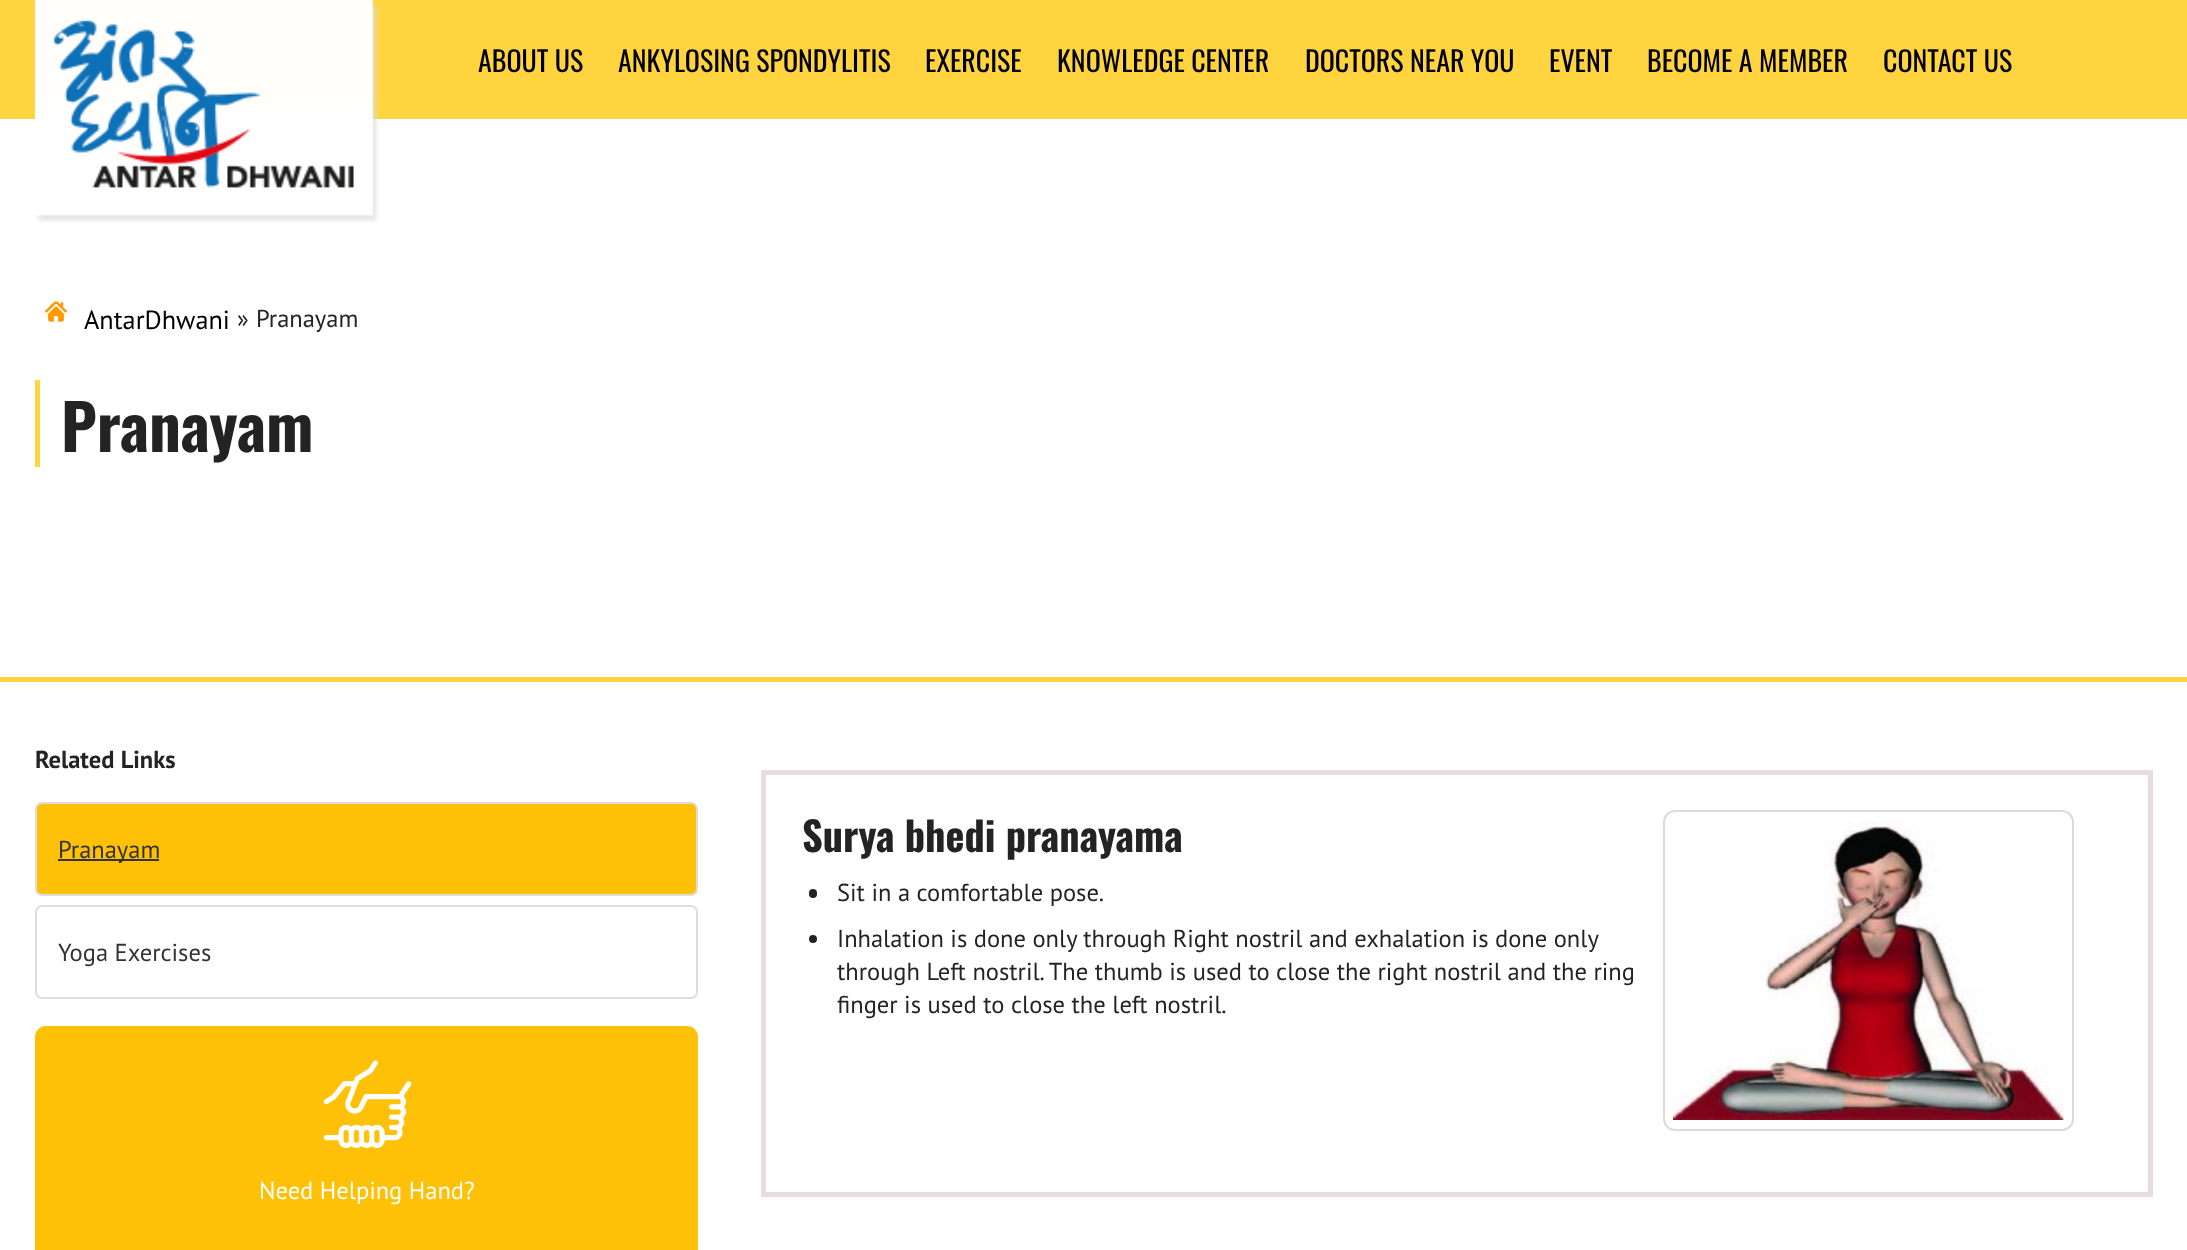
<svg xmlns="http://www.w3.org/2000/svg" width="2187" height="1250">
<rect width="100%" height="100%" fill="#fff"/>
<rect width="2187" height="119" fill="#ffd43f"/>
<image x="35" y="0" width="345" height="223" href="media/1.png"/>
<text x="478" y="72" style="font-family:Oswald;font-size:28px;fill:#000">ABOUT US</text>
<text x="618" y="72" style="font-family:Oswald;font-size:28px;fill:#000">ANKYLOSING SPONDYLITIS</text>
<text x="925" y="72" style="font-family:Oswald;font-size:28px;fill:#000">EXERCISE</text>
<text x="1057" y="72" style="font-family:Oswald;font-size:28px;fill:#000">KNOWLEDGE CENTER</text>
<text x="1305" y="72" style="font-family:Oswald;font-size:28px;fill:#000">DOCTORS NEAR YOU</text>
<text x="1549" y="72" style="font-family:Oswald;font-size:28px;fill:#000">EVENT</text>
<text x="1647" y="72" style="font-family:Oswald;font-size:28px;fill:#000">BECOME A MEMBER</text>
<text x="1883" y="72" style="font-family:Oswald;font-size:28px;fill:#000">CONTACT US</text>
<rect y="677" width="2187" height="5" fill="#ffd43f"/>
<image x="45" y="301" width="22" height="21" href="media/2.png"/>
<text x="84" y="329" style="font-family:PT Sans;font-size:26.25px;fill:#000">AntarDhwani</text>
<text x="237" y="327" style="font-family:PT Sans;font-size:24.5px;fill:#232323">»</text>
<text x="256" y="327" style="font-family:PT Sans;font-size:24.5px;fill:#232323">Pranayam</text>
<rect x="35" y="380" width="5" height="87" fill="#ffd43f"/>
<text x="61" y="452" style="font-family:Oswald;font-size:63px;font-weight:bold;fill:#232323">Pranayam</text>
<text x="35" y="768" style="font-family:PT Sans;font-size:24.5px;font-weight:bold;fill:#232323">Related Links</text>
<rect x="36" y="803" width="661" height="92" rx="6" fill="#ffc107" stroke="#ddd" stroke-width="2"/>
<rect x="58" y="859" width="101" height="2" fill="#333"/>
<text x="58" y="858" style="font-family:PT Sans;font-size:24.5px;fill:#333">Pranayam</text>
<rect x="36" y="906" width="661" height="92" rx="6" fill="none" stroke="#ddd" stroke-width="2"/>
<text x="58" y="961" style="font-family:PT Sans;font-size:24.5px;fill:#333">Yoga Exercises</text>
<rect x="35" y="1026" width="663" height="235" rx="11" fill="#ffc107"/>
<image x="323" y="1060" width="89" height="88" href="media/3.png"/>
<text x="259" y="1199" style="font-family:PT Sans;font-size:24.5px;fill:#fff">Need Helping Hand?</text>
<rect x="763.5" y="772.5" width="1387" height="422" fill="none" stroke="#e7dddd" stroke-width="5"/>
<text x="802" y="852" style="font-family:Oswald;font-size:40.25px;font-weight:bold;fill:#232323">Surya bhedi pranayama</text>
<rect x="809" y="889" width="8" height="9" rx="4" fill="#232323"/>
<text x="837" y="901" style="font-family:PT Sans;font-size:24.5px;fill:#232323">Sit in a comfortable pose.</text>
<circle cx="813" cy="939" r="4" fill="#232323"/>
<text x="837" y="947" style="font-family:PT Sans;font-size:24.5px;fill:#232323">Inhalation is done only through Right nostril and exhalation is done only</text>
<text x="837" y="980" style="font-family:PT Sans;font-size:24.5px;fill:#232323">through Left nostril. The thumb is used to close the right nostril and the ring</text>
<text x="837" y="1013" style="font-family:PT Sans;font-size:24.5px;fill:#232323">finger is used to close the left nostril.</text>
<rect x="1664" y="811" width="409" height="319" rx="11" fill="none" stroke="#dbdbdb" stroke-width="2"/>
<image x="1673" y="821" width="391" height="299" href="media/4.png"/>
</svg>
